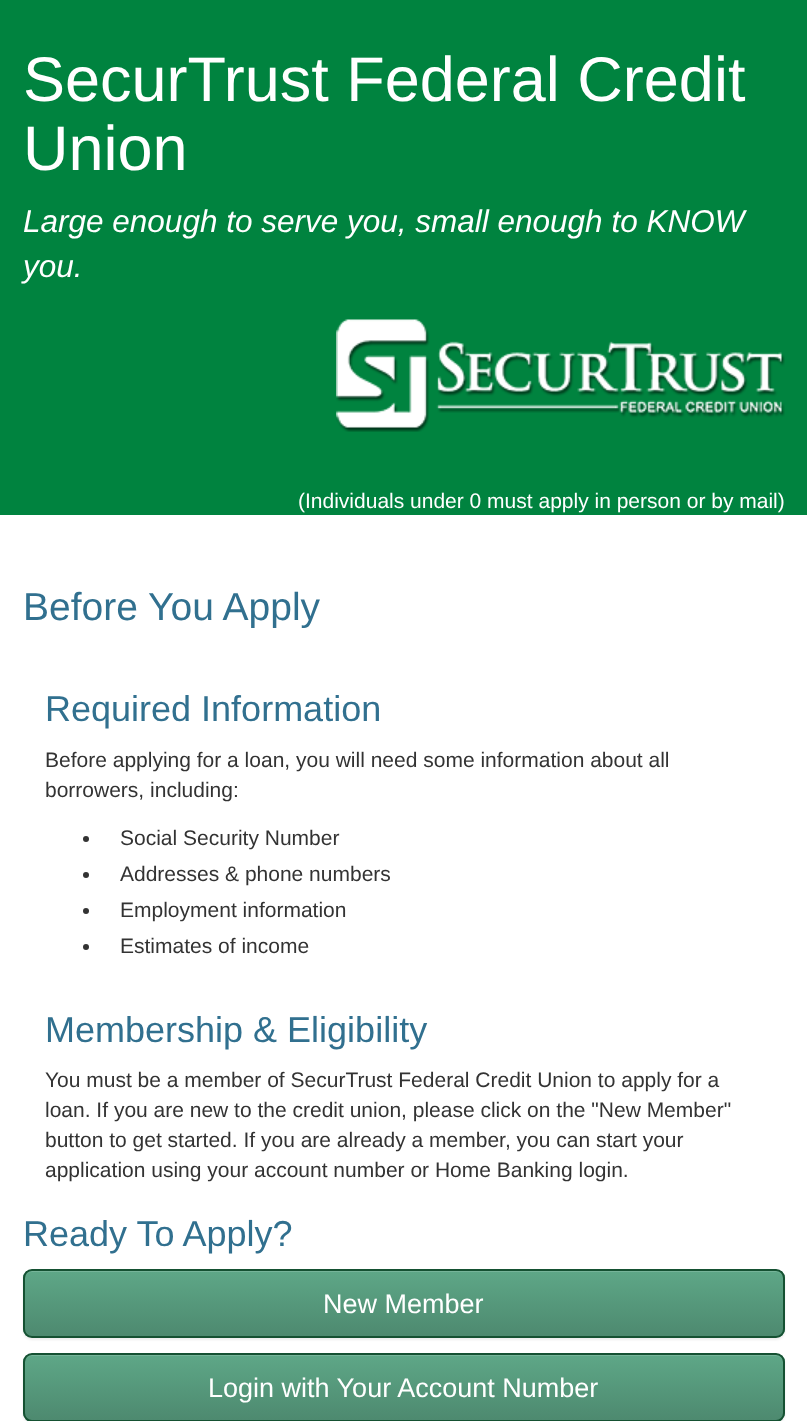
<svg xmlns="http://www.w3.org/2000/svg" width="807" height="1421">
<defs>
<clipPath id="clip1"><rect x="23" y="1269" width="762" height="69" rx="9"/></clipPath>
<linearGradient id="g1" gradientUnits="userSpaceOnUse" x1="404" y1="1271" x2="404" y2="1337"><stop offset="0" stop-color="#5ea787"/><stop offset="1" stop-color="#4d896f"/></linearGradient>
<clipPath id="clip2"><rect x="23" y="1353" width="762" height="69" rx="9"/></clipPath>
<linearGradient id="g2" gradientUnits="userSpaceOnUse" x1="404" y1="1355" x2="404" y2="1421"><stop offset="0" stop-color="#5ea787"/><stop offset="1" stop-color="#4d896f"/></linearGradient>
</defs>
<rect width="100%" height="100%" fill="#fff"/>
<rect width="807" height="515" fill="#00833f"/>
<text x="23" y="101" style="font-family:Liberation Sans;font-size:63px;fill:#fff">SecurTrust Federal Credit</text>
<text x="23" y="170" style="font-family:Liberation Sans;font-size:63px;fill:#fff">Union</text>
<text x="23" y="232" style="font-family:Liberation Sans;font-size:31.5px;font-style:italic;fill:#fff">Large enough to serve you, small enough to KNOW</text>
<text x="23" y="277" style="font-family:Liberation Sans;font-size:31.5px;font-style:italic;fill:#fff">you.</text>
<image x="336" y="319" width="449" height="113" href="media/1.png"/>
<text x="298" y="508" style="font-family:Liberation Sans;font-size:21px;fill:#fff">(Individuals under 0 must apply in person or by mail)</text>
<text x="23" y="620" style="font-family:Liberation Sans;font-size:39px;fill:#31708f">Before You Apply</text>
<text x="45" y="721" style="font-family:Liberation Sans;font-size:36px;fill:#31708f">Required Information</text>
<text x="45" y="767" style="font-family:Liberation Sans;font-size:21px;fill:#333">Before applying for a loan, you will need some information about all</text>
<text x="45" y="797" style="font-family:Liberation Sans;font-size:21px;fill:#333">borrowers, including:</text>
<circle cx="86" cy="839" r="3" fill="#333"/>
<text x="120" y="845" style="font-family:Liberation Sans;font-size:21px;fill:#333">Social Security Number</text>
<circle cx="86" cy="875" r="3" fill="#333"/>
<text x="120" y="881" style="font-family:Liberation Sans;font-size:21px;fill:#333">Addresses &amp; phone numbers</text>
<circle cx="86" cy="911" r="3" fill="#333"/>
<text x="120" y="917" style="font-family:Liberation Sans;font-size:21px;fill:#333">Employment information</text>
<circle cx="86" cy="947" r="3" fill="#333"/>
<text x="120" y="953" style="font-family:Liberation Sans;font-size:21px;fill:#333">Estimates of income</text>
<text x="45" y="1042" style="font-family:Liberation Sans;font-size:36px;fill:#31708f">Membership &amp; Eligibility</text>
<text x="45" y="1087" style="font-family:Liberation Sans;font-size:21px;fill:#333">You must be a member of SecurTrust Federal Credit Union to apply for a</text>
<text x="45" y="1117" style="font-family:Liberation Sans;font-size:21px;fill:#333">loan. If you are new to the credit union, please click on the "New Member"</text>
<text x="45" y="1147" style="font-family:Liberation Sans;font-size:21px;fill:#333">button to get started. If you are already a member, you can start your</text>
<text x="45" y="1177" style="font-family:Liberation Sans;font-size:21px;fill:#333">application using your account number or Home Banking login.</text>
<text x="23" y="1246" style="font-family:Liberation Sans;font-size:36px;fill:#31708f">Ready To Apply?</text>
<rect x="23" y="1271" width="762" height="69" rx="9" fill="#00000012" filter="blur(1px)"/>
<g clip-path="url(#clip1)">
<rect x="23" y="1271" width="762" height="66" fill="url(#g1)"/>
</g>
<path d="M32 1272h744c4 0 7 3 7 8c0-5-3-9-8-9h-743c-5 0-8 4-8 9c0-5 3-8 8-8z" fill="#76b499"/>
<rect x="24" y="1270" width="760" height="67" rx="8" fill="none" stroke="#155132" stroke-width="2"/>
<text x="323" y="1313" style="font-family:Liberation Sans;font-size:27px;fill:#fff">New Member</text>
<rect x="23" y="1355" width="762" height="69" rx="9" fill="#00000012" filter="blur(1px)"/>
<g clip-path="url(#clip2)">
<rect x="23" y="1355" width="762" height="66" fill="url(#g2)"/>
</g>
<path d="M32 1356h744c4 0 7 3 7 8c0-5-3-9-8-9h-743c-5 0-8 4-8 9c0-5 3-8 8-8z" fill="#76b499"/>
<rect x="24" y="1354" width="760" height="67" rx="8" fill="none" stroke="#155132" stroke-width="2"/>
<text x="208" y="1397" style="font-family:Liberation Sans;font-size:27px;fill:#fff">Login with Your Account Number</text>
</svg>
